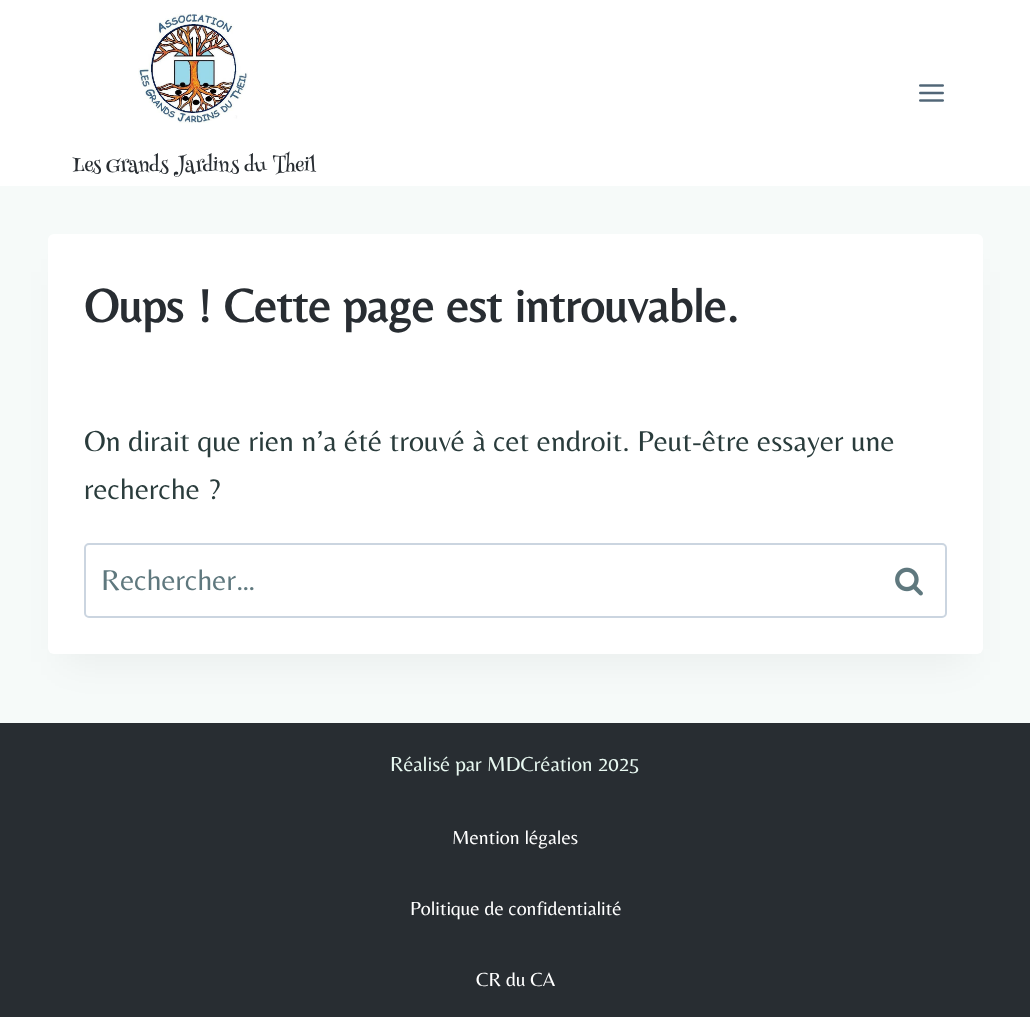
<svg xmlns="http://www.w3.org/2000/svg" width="1030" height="1017">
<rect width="100%" height="100%" fill="#f6faf9"/>
<rect width="1030" height="186" fill="#fff"/>
<image x="919" y="84" width="25" height="18" href="media/1.png"/>
<image x="138" y="13" width="110" height="111" href="media/2.png"/>
<text x="72" y="172" style="font-family:Henny Penny;font-size:19.25px;fill:#282d32">Les Grands Jardins du Theil</text>
<rect x="63" y="272" width="905" height="390" fill="#0000000d" filter="blur(19px)"/>
<rect x="48" y="234" width="935" height="420" rx="6" fill="#fff"/>
<text x="84" y="322" style="font-family:Belleza;font-size:48px;font-weight:bold;fill:#282d32">Oups ! Cette page est introuvable.</text>
<text x="84" y="451" style="font-family:Belleza;font-size:30px;fill:#2a3c3c">On dirait que rien n’a été trouvé à cet endroit. Peut-être essayer une</text>
<text x="84" y="499" style="font-family:Belleza;font-size:30px;fill:#2a3c3c">recherche ?</text>
<rect x="85" y="544" width="861" height="73" rx="4" fill="none" stroke="#cbd5e0" stroke-width="2"/>
<text x="101" y="590" style="font-family:Belleza;font-size:30px;fill:#5f787e">Rechercher…</text>
<image x="895" y="567" width="28" height="29" href="media/3.png"/>
<rect y="723" width="1030" height="294" fill="#282d32"/>
<text x="390" y="771" style="font-family:Belleza;font-size:21px;fill:#e8f8f1">Réalisé par MDCréation 2025</text>
<text x="452" y="844" style="font-family:Belleza;font-size:19.75px;fill:#fff">Mention légales</text>
<text x="410" y="915" style="font-family:Belleza;font-size:19.75px;fill:#fff">Politique de confidentialité</text>
<text x="476" y="986" style="font-family:Belleza;font-size:19.75px;fill:#fff">CR du CA</text>
</svg>
